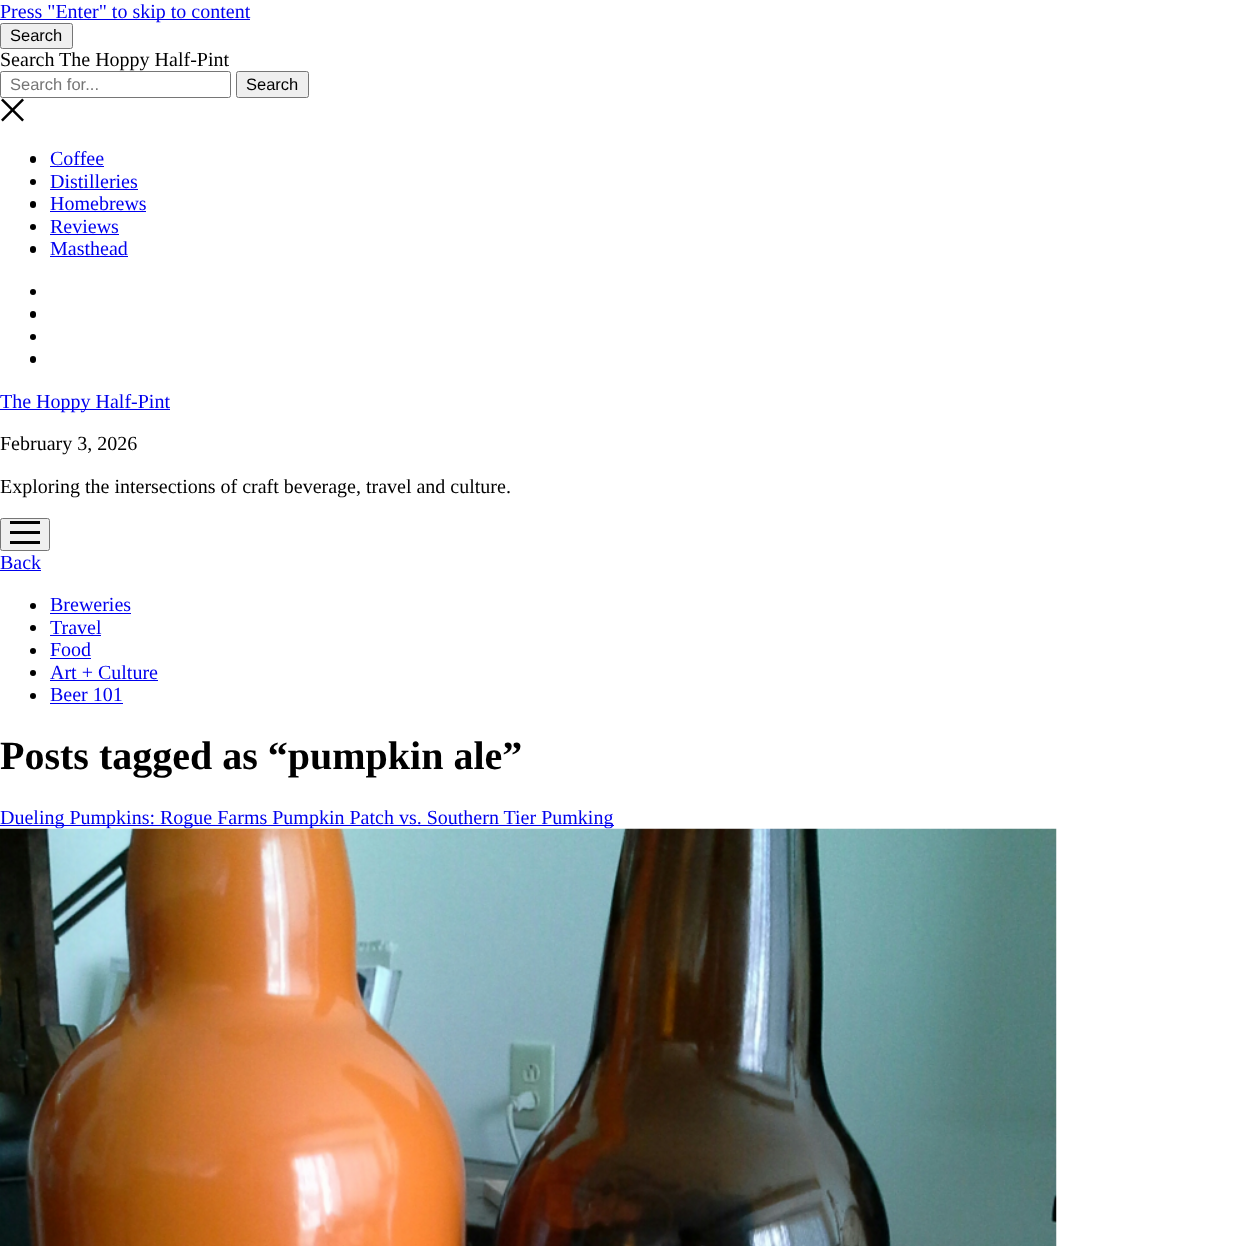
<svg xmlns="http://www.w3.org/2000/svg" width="1250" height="1246">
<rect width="100%" height="100%" fill="#fff"/>
<rect y="19" width="250" height="1" fill="#00e"/>
<text x="0" y="18" style="font-family:Liberation Serif;font-size:20px;fill:#00e">Press "Enter" to skip to content</text>
<rect x="0.5" y="23.5" width="72" height="25" rx="2" fill="#efefef" stroke="#767676"/>
<text x="10" y="41" style="font-family:Liberation Sans;font-size:16.5px;fill:#000">Search</text>
<text x="0" y="66" style="font-family:Liberation Serif;font-size:20px;fill:#000">Search The Hoppy Half-Pint</text>
<rect x="0.5" y="71.5" width="230" height="26" rx="2" fill="none" stroke="#767676"/>
<text x="10" y="90" style="font-family:Liberation Sans;font-size:16.5px;fill:#757575">Search for...</text>
<rect x="236.5" y="71.5" width="72" height="26" rx="2" fill="#efefef" stroke="#767676"/>
<text x="246" y="90" style="font-family:Liberation Sans;font-size:16.5px;fill:#000">Search</text>
<image x="1" y="98" width="23" height="24" href="media/1.png"/>
<rect x="30" y="156" width="6" height="7" rx="3" fill="#000"/>
<text x="50" y="165" style="font-family:Liberation Serif;font-size:20px;fill:#00e">Coffee</text>
<rect x="50" y="166" width="54" height="1" fill="#00e"/>
<circle cx="33" cy="182" r="3" fill="#000"/>
<text x="50" y="188" style="font-family:Liberation Serif;font-size:20px;fill:#00e">Distilleries</text>
<rect x="50" y="189" width="88" height="1" fill="#00e"/>
<rect x="30" y="201" width="6" height="7" rx="3" fill="#000"/>
<text x="50" y="210" style="font-family:Liberation Serif;font-size:20px;fill:#00e">Homebrews</text>
<rect x="50" y="211" width="96" height="1" fill="#00e"/>
<circle cx="33" cy="227" r="3" fill="#000"/>
<text x="50" y="233" style="font-family:Liberation Serif;font-size:20px;fill:#00e">Reviews</text>
<rect x="50" y="234" width="69" height="1" fill="#00e"/>
<rect x="30" y="246" width="6" height="7" rx="3" fill="#000"/>
<text x="50" y="255" style="font-family:Liberation Serif;font-size:20px;fill:#00e">Masthead</text>
<rect x="50" y="256" width="78" height="1" fill="#00e"/>
<circle cx="33" cy="292" r="3" fill="#000"/>
<rect x="30" y="311" width="6" height="7" rx="3" fill="#000"/>
<circle cx="33" cy="337" r="3" fill="#000"/>
<rect x="30" y="356" width="6" height="7" rx="3" fill="#000"/>
<rect y="409" width="170" height="1" fill="#00e"/>
<text x="0" y="408" style="font-family:Liberation Serif;font-size:20px;fill:#00e">The Hoppy Half-Pint</text>
<text x="0" y="450" style="font-family:Liberation Serif;font-size:20px;fill:#000">February 3, 2026</text>
<text x="0" y="493" style="font-family:Liberation Serif;font-size:20px;fill:#000">Exploring the intersections of craft beverage, travel and culture.</text>
<rect x="0.5" y="518.5" width="49" height="32" rx="2" fill="#efefef" stroke="#767676"/>
<rect x="10" y="521" width="30" height="3" fill="#000"/>
<rect x="10" y="531" width="30" height="3" fill="#000"/>
<rect x="10" y="541" width="30" height="3" fill="#000"/>
<text x="0" y="569" style="font-family:Liberation Serif;font-size:20px;fill:#00e">Back</text>
<rect y="570" width="41" height="1" fill="#00e"/>
<circle cx="33" cy="606" r="3" fill="#000"/>
<text x="50" y="611" style="font-family:Liberation Serif;font-size:20px;fill:#00e">Breweries</text>
<rect x="50" y="613" width="81" height="1" fill="#00e"/>
<circle cx="33" cy="628" r="3" fill="#000"/>
<text x="50" y="634" style="font-family:Liberation Serif;font-size:20px;fill:#00e">Travel</text>
<rect x="50" y="635" width="51" height="1" fill="#00e"/>
<circle cx="33" cy="651" r="3" fill="#000"/>
<text x="50" y="656" style="font-family:Liberation Serif;font-size:20px;fill:#00e">Food</text>
<rect x="50" y="658" width="41" height="1" fill="#00e"/>
<circle cx="33" cy="673" r="3" fill="#000"/>
<text x="50" y="679" style="font-family:Liberation Serif;font-size:20px;fill:#00e">Art + Culture</text>
<rect x="50" y="680" width="108" height="1" fill="#00e"/>
<circle cx="33" cy="696" r="3" fill="#000"/>
<text x="50" y="701" style="font-family:Liberation Serif;font-size:20px;fill:#00e">Beer 101</text>
<rect x="50" y="703" width="73" height="1" fill="#00e"/>
<text x="0" y="769" style="font-family:Liberation Serif;font-size:40px;font-weight:bold;fill:#000">Posts tagged as “pumpkin ale”</text>
<rect y="825" width="614" height="1" fill="#00e"/>
<text x="0" y="824" style="font-family:Liberation Serif;font-size:20px;fill:#00e">Dueling Pumpkins: Rogue Farms Pumpkin Patch vs. Southern Tier Pumking</text>
<image x="0" y="828" width="1057" height="418" href="media/2.png"/>
</svg>
